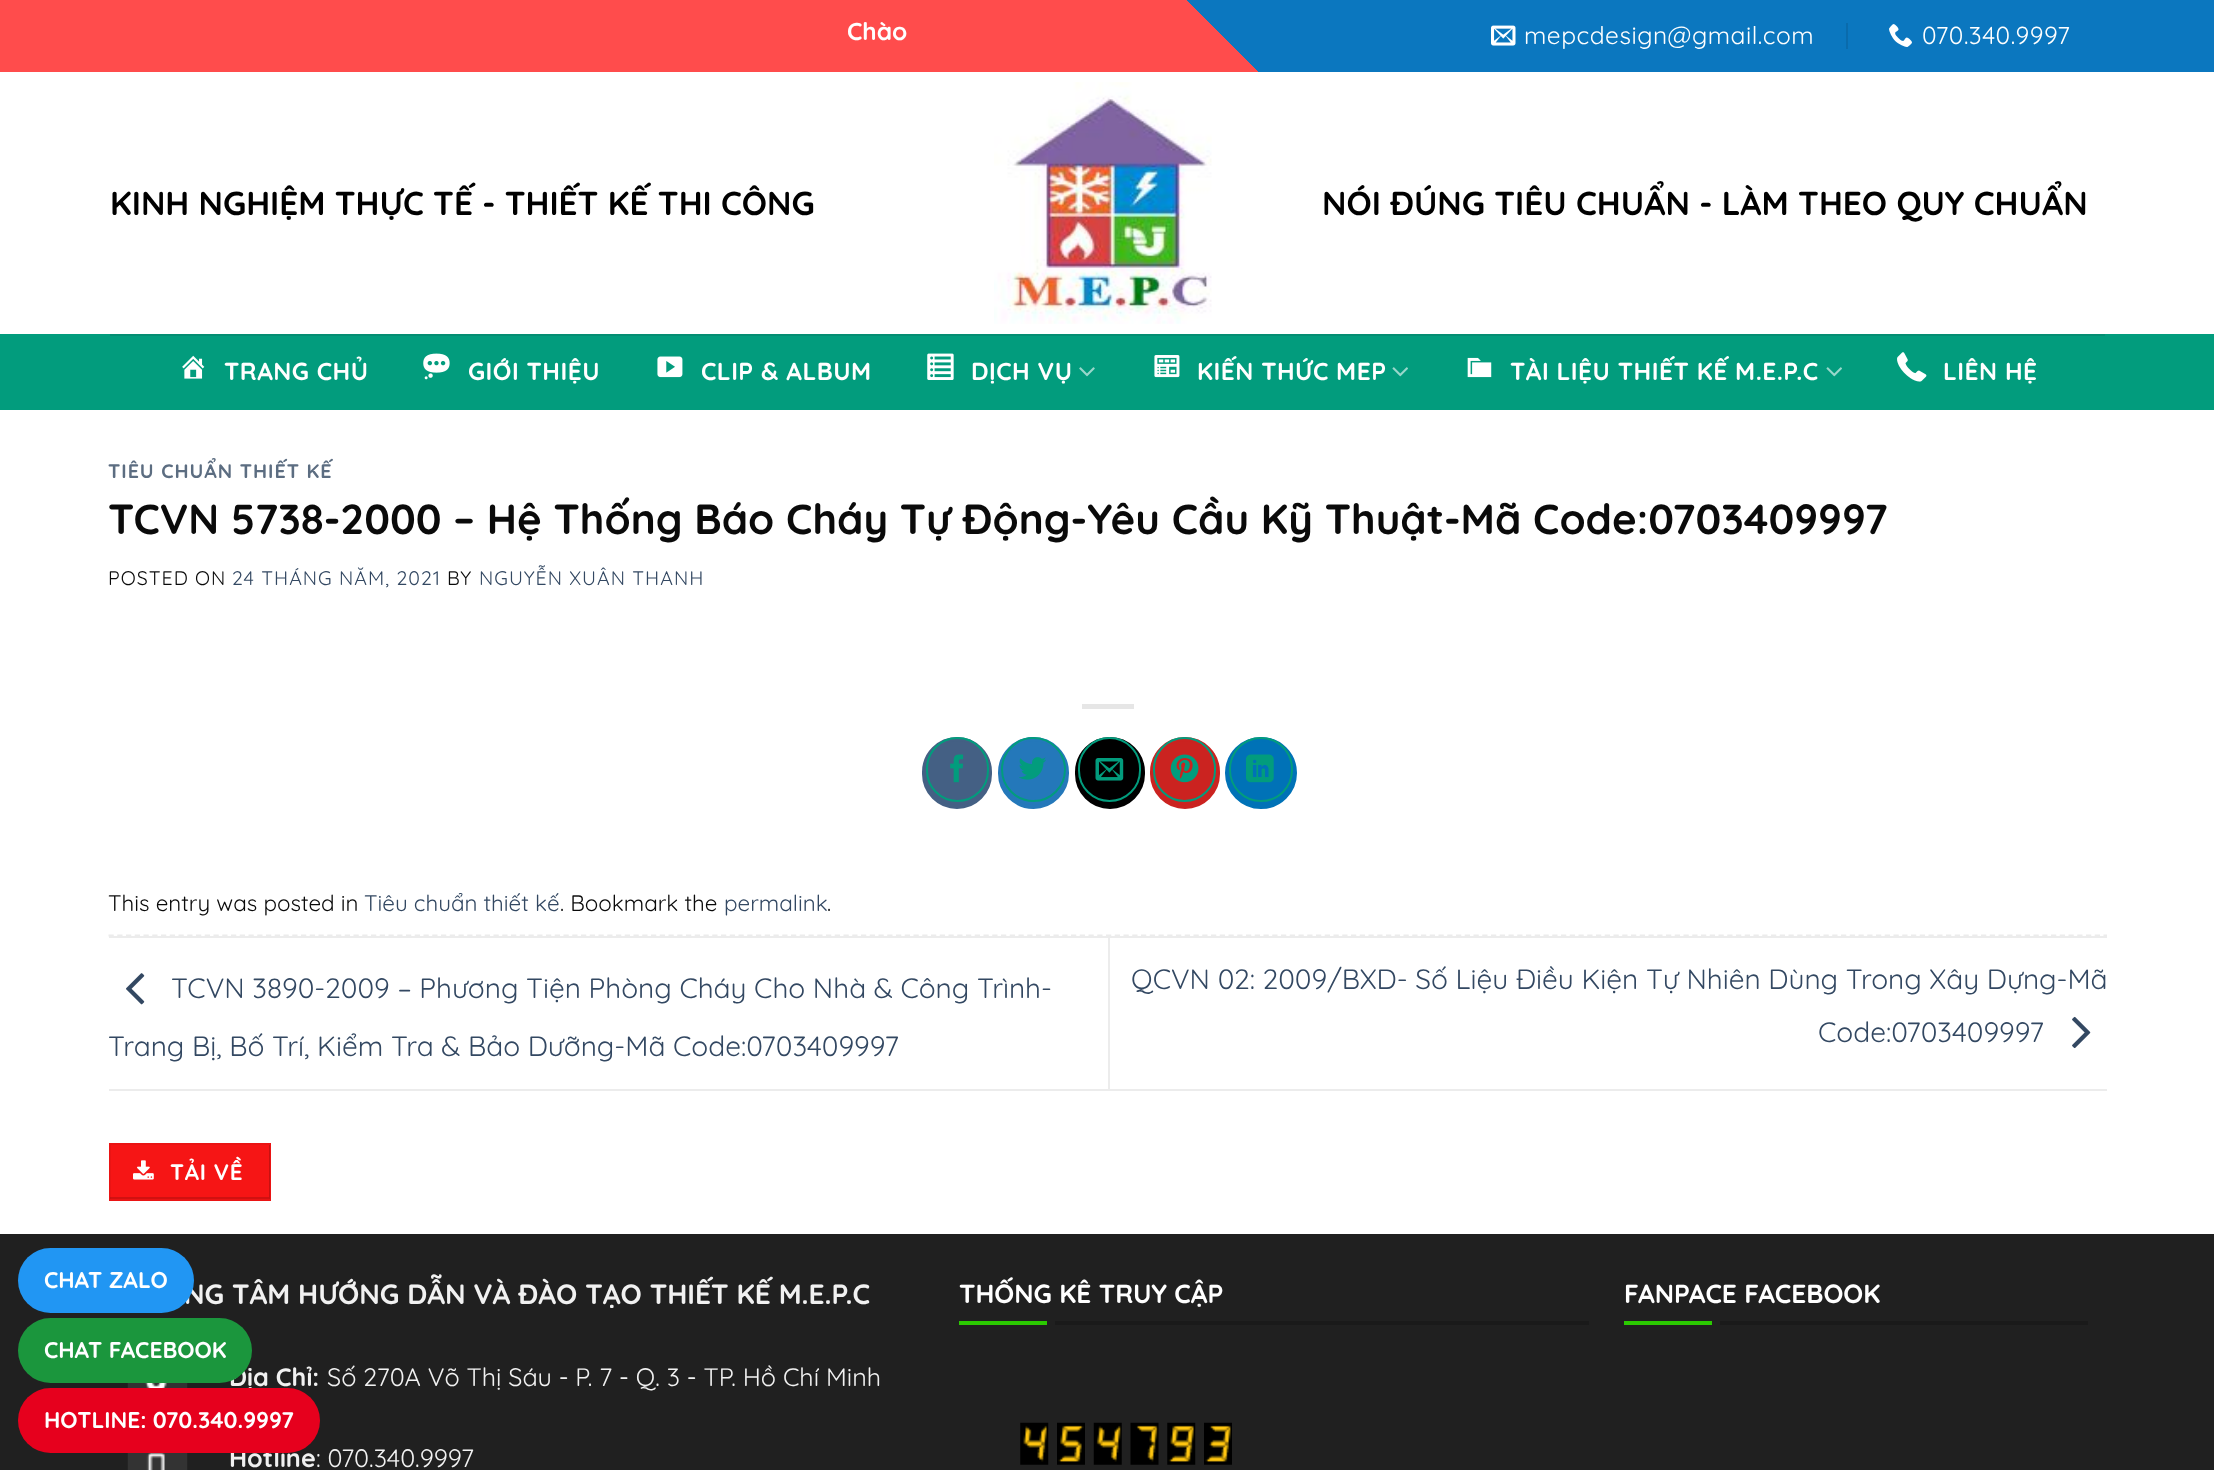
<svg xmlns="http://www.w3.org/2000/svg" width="2214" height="1470">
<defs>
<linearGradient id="g1" gradientUnits="userSpaceOnUse" x1="536" y1="608" x2="1680" y2="-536"><stop offset="0.55" stop-color="#ff4c4c"/><stop offset="0.55" stop-color="#0b77bf"/></linearGradient>
<clipPath id="clip1"><rect x="110" y="1145" width="160" height="54"/></clipPath>
</defs>
<rect width="100%" height="100%" fill="#fff"/>
<rect width="2214" height="72" fill="url(#g1)"/>
<text x="847" y="40" style="font-family:Quicksand;font-size:24.5px;font-weight:bold;fill:#fff">Chào</text>
<image x="1491" y="25" width="25" height="21" href="media/1.png"/>
<text x="1524" y="44" style="font-family:Quicksand;font-size:24.5px;letter-spacing:0.5px;fill:#fff">mepcdesign@gmail.com</text>
<rect x="1846" y="23" width="2" height="26" fill="#0a6bac"/>
<image x="1889" y="24" width="23" height="23" href="media/2.png"/>
<text x="1922" y="44" style="font-family:Quicksand;font-size:24.5px;letter-spacing:0.5px;fill:#fff">070.340.9997</text>
<text x="110" y="215" style="font-family:Quicksand;font-size:33.25px;font-weight:bold;fill:#000">KINH NGHIỆM THỰC TẾ - THIẾT KẾ THI CÔNG</text>
<image x="994" y="82" width="218" height="242" href="media/3.png"/>
<text x="1322" y="215" style="font-family:Quicksand;font-size:33.25px;font-weight:bold;fill:#000">NÓI ĐÚNG TIÊU CHUẨN - LÀM THEO QUY CHUẨN</text>
<rect y="334" width="2214" height="76" fill="#029c7d"/>
<rect x="110" y="334" width="1995" height="2" fill="#038d72"/>
<image x="182" y="355" width="23" height="24" href="media/4.png"/>
<text x="224" y="380" style="font-family:Quicksand;font-size:24.5px;font-weight:bold;letter-spacing:0.5px;fill:#fff">TRANG CHỦ</text>
<image x="423" y="353" width="27" height="27" href="media/5.png"/>
<text x="468" y="380" style="font-family:Quicksand;font-size:24.5px;font-weight:bold;letter-spacing:0.5px;fill:#fff">GIỚI THIỆU</text>
<image x="657" y="356" width="26" height="22" href="media/6.png"/>
<text x="701" y="380" style="font-family:Quicksand;font-size:24.5px;font-weight:bold;letter-spacing:0.5px;fill:#fff">CLIP &amp; ALBUM</text>
<image x="927" y="353" width="27" height="27" href="media/7.png"/>
<text x="971" y="380" style="font-family:Quicksand;font-size:24.5px;font-weight:bold;letter-spacing:0.5px;fill:#fff">DỊCH VỤ</text>
<image x="1079" y="367" width="16" height="10" href="media/8.png"/>
<image x="1154" y="355" width="26" height="23" href="media/9.png"/>
<text x="1197" y="380" style="font-family:Quicksand;font-size:24.5px;font-weight:bold;letter-spacing:0.5px;fill:#fff">KIẾN THỨC MEP</text>
<image x="1392" y="367" width="16" height="10" href="media/10.png"/>
<image x="1467" y="357" width="25" height="21" href="media/11.png"/>
<text x="1510" y="380" style="font-family:Quicksand;font-size:24.5px;font-weight:bold;letter-spacing:0.5px;fill:#fff">TÀI LIỆU THIẾT KẾ M.E.P.C</text>
<image x="1826" y="367" width="16" height="10" href="media/10.png"/>
<image x="1897" y="352" width="30" height="30" href="media/12.png"/>
<text x="1943" y="380" style="font-family:Quicksand;font-size:24.5px;font-weight:bold;letter-spacing:0.5px;fill:#fff">LIÊN HỆ</text>
<text x="108" y="478" style="font-family:Quicksand;font-size:19.6px;font-weight:bold;letter-spacing:1px;fill:#5c6d81">TIÊU CHUẨN THIẾT KẾ</text>
<text x="108" y="534" style="font-family:Quicksand;font-size:42px;font-weight:bold;fill:#0a0a0a">TCVN 5738-2000 – Hệ Thống Báo Cháy Tự Động-Yêu Cầu Kỹ Thuật-Mã Code:0703409997</text>
<text x="108" y="585" style="font-family:Quicksand;font-size:19.6px;letter-spacing:1px;fill:#0a0a0a">POSTED ON</text>
<text x="232" y="585" style="font-family:Quicksand;font-size:19.6px;letter-spacing:1px;fill:#334862">24 THÁNG NĂM, 2021</text>
<text x="447" y="585" style="font-family:Quicksand;font-size:19.6px;letter-spacing:1px;fill:#0a0a0a">BY</text>
<text x="479" y="585" style="font-family:Quicksand;font-size:19.6px;letter-spacing:1px;fill:#334862">NGUYỄN XUÂN THANH</text>
<rect x="1082" y="704" width="52" height="5" fill="#e6e6e6"/>
<rect x="924" y="739" width="66" height="68" rx="33" fill="#446084" stroke="#446084" stroke-width="4"/>
<rect x="927" y="738" width="61" height="63" rx="30.5" fill="none" stroke="#029c7d" stroke-width="2"/>
<image x="950" y="754" width="14" height="29" href="media/13.png"/>
<rect x="1000" y="739" width="67" height="68" rx="33.5" fill="#2478ba" stroke="#2478ba" stroke-width="4"/>
<circle cx="1033.5" cy="769.5" r="31.5" fill="none" stroke="#029c7d" stroke-width="2"/>
<image x="1019" y="757" width="27" height="23" href="media/14.png"/>
<rect x="1077" y="739" width="66" height="68" rx="33" fill="#000" stroke="#000" stroke-width="4"/>
<rect x="1079" y="738" width="61" height="63" rx="30.5" fill="none" stroke="#029c7d" stroke-width="2"/>
<image x="1095" y="758" width="29" height="23" href="media/15.png"/>
<rect x="1152" y="739" width="66" height="68" rx="33" fill="#cb2320" stroke="#cb2320" stroke-width="4"/>
<rect x="1154" y="738" width="61" height="63" rx="30.5" fill="none" stroke="#029c7d" stroke-width="2"/>
<image x="1170" y="754" width="29" height="29" href="media/16.png"/>
<circle cx="1261" cy="773" r="34" fill="#0072b7" stroke="#0072b7" stroke-width="4"/>
<rect x="1230" y="738" width="62" height="63" rx="31" fill="none" stroke="#029c7d" stroke-width="2"/>
<image x="1246" y="754" width="28" height="29" href="media/17.png"/>
<path d="M108.5 935.5h1998.5" fill="none" stroke="#ececec" stroke-width="1.8" stroke-dasharray="5.25 3.5"/>
<text x="108" y="911" style="font-family:Quicksand;font-size:22.4px;fill:#0a0a0a">This entry was posted in</text>
<text x="364" y="911" style="font-family:Quicksand;font-size:22.4px;fill:#334862">Tiêu chuẩn thiết kế</text>
<text x="560" y="911" style="font-family:Quicksand;font-size:22.4px;fill:#0a0a0a">. Bookmark the</text>
<text x="724" y="911" style="font-family:Quicksand;font-size:22.4px;fill:#334862">permalink</text>
<text x="827" y="911" style="font-family:Quicksand;font-size:22.4px;fill:#0a0a0a">.</text>
<rect x="109" y="936" width="1998" height="2" fill="#ececec"/>
<rect x="109" y="1089" width="1998" height="2" fill="#ececec"/>
<image x="126" y="973" width="19" height="32" href="media/18.png"/>
<text x="171" y="998" style="font-family:Quicksand;font-size:28px;fill:#334862">TCVN 3890-2009 – Phương Tiện Phòng Cháy Cho Nhà &amp; Công Trình-</text>
<text x="108" y="1056" style="font-family:Quicksand;font-size:28px;fill:#334862">Trang Bị, Bố Trí, Kiểm Tra &amp; Bảo Dưỡng-Mã Code:0703409997</text>
<rect x="1108" y="938" width="2" height="151" fill="#ececec"/>
<text x="1131" y="989" style="font-family:Quicksand;font-size:28px;fill:#334862">QCVN 02: 2009/BXD- Số Liệu Điều Kiện Tự Nhiên Dùng Trong Xây Dựng-Mã</text>
<text x="1818" y="1042" style="font-family:Quicksand;font-size:28px;fill:#334862">Code:0703409997</text>
<image x="2072" y="1016" width="19" height="33" href="media/19.png"/>
<rect x="110" y="1144" width="160" height="56" fill="#f61515" stroke="#ea1414" stroke-width="2"/>
<image x="133" y="1160" width="21" height="20" href="media/20.png"/>
<text x="170" y="1180" style="font-family:Quicksand;font-size:22.4px;font-weight:bold;letter-spacing:0.75px;fill:#fff">TẢI VỀ</text>
<g clip-path="url(#clip1)">
<path d="M-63 971h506v401h-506zm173 171h159v55h-159z" fill="#00000026" fill-rule="evenodd"/>
</g>
<rect y="1234" width="2214" height="236" fill="#202020"/>
<text x="184" y="1304" style="font-family:Quicksand;font-size:28px;font-weight:bold;fill:#f1f1f1">NG TÂM HƯỚNG DẪN VÀ ĐÀO TẠO THIẾT KẾ M.E.P.C</text>
<rect x="18" y="1248" width="176" height="65" rx="32.5" fill="#2196f3"/>
<text x="44" y="1288" style="font-family:Quicksand;font-size:22.75px;font-weight:bold;fill:#fff">CHAT ZALO</text>
<image x="127" y="1383" width="61" height="5" href="media/21.png"/>
<text x="229" y="1386" style="font-family:Quicksand;font-size:25.2px;font-weight:bold;fill:#f1f1f1">Địa Chỉ:</text>
<text x="327" y="1386" style="font-family:Quicksand;font-size:25.2px;fill:#f1f1f1">Số 270A Võ Thị Sáu - P. 7 - Q. 3 - TP. Hồ Chí Minh</text>
<image x="127" y="1453" width="61" height="17" href="media/22.png"/>
<text x="229" y="1467" style="font-family:Quicksand;font-size:25.2px;font-weight:bold;fill:#f1f1f1">Hotline</text>
<text x="316" y="1467" style="font-family:Quicksand;font-size:25.2px;fill:#f1f1f1">: 070.340.9997</text>
<text x="959" y="1303" style="font-family:Quicksand;font-size:26.25px;font-weight:bold;fill:#fff">THỐNG KÊ TRUY CẬP</text>
<rect x="959" y="1321" width="88" height="4" fill="#2bca01"/>
<rect x="1055" y="1321" width="534" height="4" fill="#1a1a1a"/>
<image x="1020" y="1422" width="29" height="43" href="media/23.png"/>
<image x="1057" y="1422" width="28" height="43" href="media/24.png"/>
<image x="1093" y="1422" width="29" height="43" href="media/25.png"/>
<image x="1130" y="1422" width="29" height="43" href="media/26.png"/>
<image x="1167" y="1422" width="29" height="43" href="media/27.png"/>
<image x="1204" y="1422" width="28" height="43" href="media/28.png"/>
<text x="1624" y="1303" style="font-family:Quicksand;font-size:26.25px;font-weight:bold;fill:#fff">FANPACE FACEBOOK</text>
<rect x="1624" y="1321" width="88" height="4" fill="#2bca01"/>
<rect x="1720" y="1321" width="368" height="4" fill="#1a1a1a"/>
<rect x="18" y="1318" width="234" height="65" rx="32.5" fill="#1b963d"/>
<text x="44" y="1358" style="font-family:Quicksand;font-size:22.75px;font-weight:bold;fill:#fff">CHAT FACEBOOK</text>
<rect x="18" y="1388" width="302" height="65" rx="32.5" fill="#e6001d"/>
<text x="44" y="1428" style="font-family:Quicksand;font-size:22.75px;font-weight:bold;fill:#fff">HOTLINE: 070.340.9997</text>
</svg>
